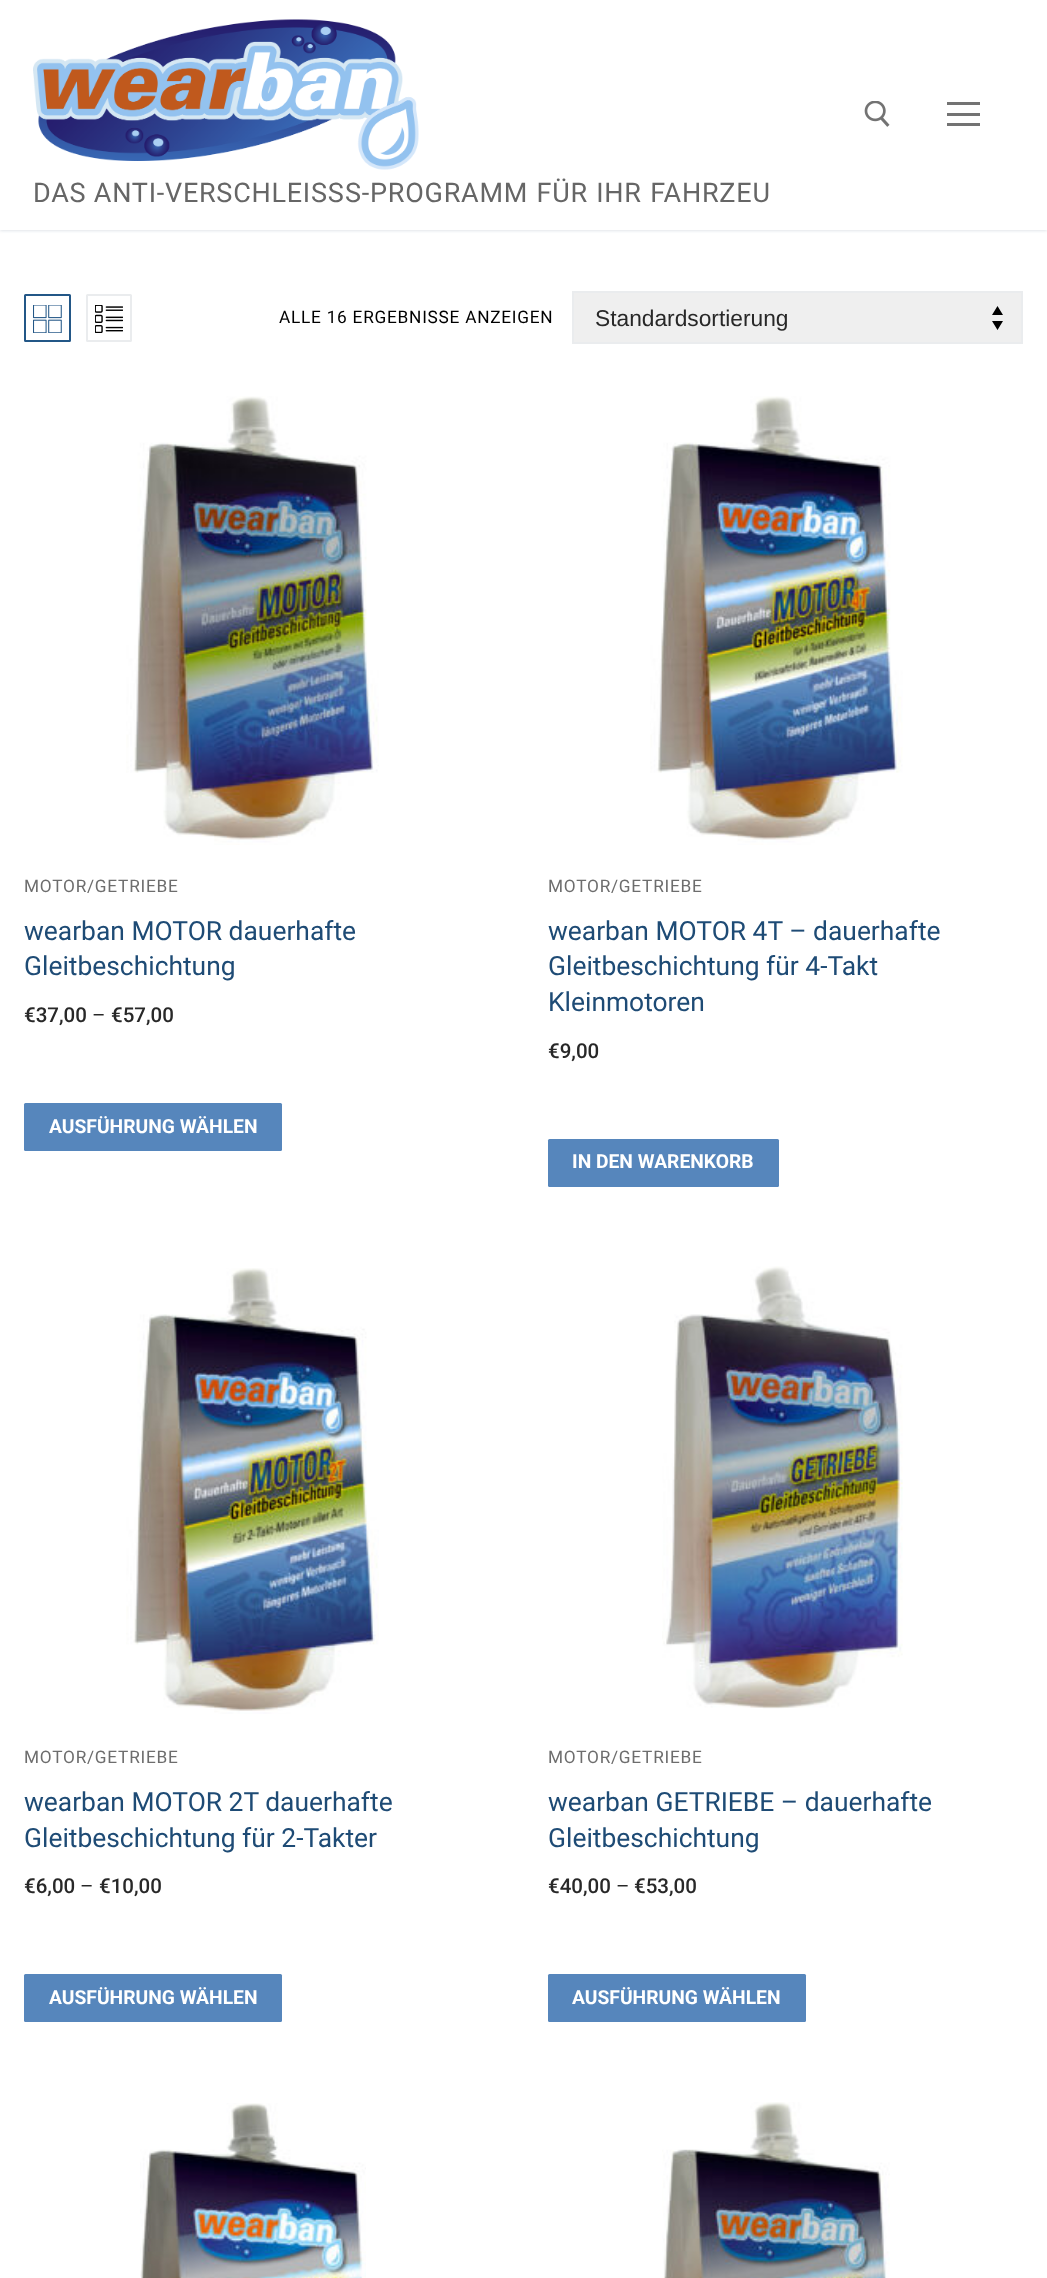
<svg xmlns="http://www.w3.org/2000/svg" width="1047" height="2278">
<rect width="100%" height="100%" fill="#fff"/>
<rect y="2" width="1047" height="229" fill="#e1e5ea" filter="blur(1.5px)"/>
<rect width="1047" height="230" fill="#fff"/>
<image x="864" y="101" width="26" height="26" href="media/1.png"/>
<rect x="947" y="113" width="33" height="3" fill="#737373"/>
<rect x="947" y="102" width="33" height="3" fill="#737373"/>
<rect x="947" y="123" width="33" height="3" fill="#737373"/>
<image x="33" y="19" width="386" height="151" href="media/2.png"/>
<text x="33" y="202" style="font-family:Roboto;font-size:27px;letter-spacing:0.75px;fill:#666">DAS ANTI-VERSCHLEISS</text>
<text x="345" y="202" word-spacing="1" style="font-family:Roboto;font-size:27px;letter-spacing:0.75px;fill:#666">S-PROGRAMM FÜR IHR FAHRZEU</text>
<rect x="25" y="295" width="45" height="46" rx="0.5" fill="none" stroke="#235787" stroke-width="2"/>
<image x="33" y="305" width="29" height="28" href="media/3.png"/>
<rect x="87" y="295" width="44" height="46" rx="0.5" fill="none" stroke="#eaecee" stroke-width="2"/>
<image x="95" y="305" width="28" height="28" href="media/4.png"/>
<text x="279" y="323" style="font-family:Roboto;font-size:17.25px;letter-spacing:0.75px;fill:#000">ALLE 16 ERGEBNISSE ANZEIGEN</text>
<rect x="574" y="293" width="447" height="49" fill="#efefef"/>
<path d="M997.5 306l-5.5 9h11zm0 24l5.5-9h-11z" fill="#000"/>
<rect x="573" y="292" width="449" height="51" fill="none" stroke="#eaecee" stroke-width="2"/>
<text x="595" y="326" style="font-family:Liberation Sans;font-size:22.75px;fill:#282828">Standardsortierung</text>
<image x="126" y="396" width="253" height="449" href="media/5.png"/>
<text x="24" y="892" style="font-family:Roboto;font-size:17.25px;letter-spacing:0.75px;fill:#6d6d6d">MOTOR/GETRIEBE</text>
<text x="24" y="940" style="font-family:Roboto;font-size:26.4px;fill:#1e4b75">wearban MOTOR dauerhafte</text>
<text x="24" y="975" style="font-family:Roboto;font-size:26.4px;fill:#1e4b75">Gleitbeschichtung</text>
<text x="24" y="1022" style="font-family:Roboto;font-size:20.5px;font-weight:500;fill:#282828">€37,00</text>
<text x="92" y="1022" style="font-family:Roboto;font-size:20.5px;fill:#282828">–</text>
<text x="111" y="1022" style="font-family:Roboto;font-size:20.5px;font-weight:500;fill:#282828">€57,00</text>
<rect x="24" y="1103" width="258" height="48" rx="1.5" fill="#5686bc"/>
<text x="49" y="1133" style="font-family:Roboto;font-size:19.25px;font-weight:bold;fill:#fff">AUSFÜHRUNG WÄHLEN</text>
<image x="650" y="396" width="253" height="449" href="media/6.png"/>
<text x="548" y="892" style="font-family:Roboto;font-size:17.25px;letter-spacing:0.75px;fill:#6d6d6d">MOTOR/GETRIEBE</text>
<text x="548" y="940" style="font-family:Roboto;font-size:26.4px;fill:#1e4b75">wearban MOTOR 4T – dauerhafte</text>
<text x="548" y="975" style="font-family:Roboto;font-size:26.4px;fill:#1e4b75">Gleitbeschichtung für 4-Takt</text>
<text x="548" y="1011" style="font-family:Roboto;font-size:26.4px;fill:#1e4b75">Kleinmotoren</text>
<text x="548" y="1058" style="font-family:Roboto;font-size:20.5px;font-weight:500;fill:#282828">€9,00</text>
<rect x="548" y="1139" width="231" height="48" rx="1.5" fill="#5686bc"/>
<text x="572" y="1168" style="font-family:Roboto;font-size:19.25px;font-weight:bold;fill:#fff">IN DEN WARENKORB</text>
<image x="126" y="1268" width="253" height="446" href="media/7.png"/>
<text x="24" y="1763" style="font-family:Roboto;font-size:17.25px;letter-spacing:0.75px;fill:#6d6d6d">MOTOR/GETRIEBE</text>
<text x="24" y="1811" style="font-family:Roboto;font-size:26.4px;fill:#1e4b75">wearban MOTOR 2T dauerhafte</text>
<text x="24" y="1847" style="font-family:Roboto;font-size:26.4px;fill:#1e4b75">Gleitbeschichtung für 2-Takter</text>
<text x="24" y="1893" style="font-family:Roboto;font-size:20.5px;font-weight:500;fill:#282828">€6,00</text>
<text x="80" y="1893" style="font-family:Roboto;font-size:20.5px;fill:#282828">–</text>
<text x="99" y="1893" style="font-family:Roboto;font-size:20.5px;font-weight:500;fill:#282828">€10,00</text>
<rect x="24" y="1974" width="258" height="48" rx="1.5" fill="#5686bc"/>
<text x="49" y="2004" style="font-family:Roboto;font-size:19.25px;font-weight:bold;fill:#fff">AUSFÜHRUNG WÄHLEN</text>
<image x="662" y="1266" width="241" height="443" href="media/8.png"/>
<text x="548" y="1763" style="font-family:Roboto;font-size:17.25px;letter-spacing:0.75px;fill:#6d6d6d">MOTOR/GETRIEBE</text>
<text x="548" y="1811" style="font-family:Roboto;font-size:26.4px;fill:#1e4b75">wearban GETRIEBE – dauerhafte</text>
<text x="548" y="1847" style="font-family:Roboto;font-size:26.4px;fill:#1e4b75">Gleitbeschichtung</text>
<text x="548" y="1893" style="font-family:Roboto;font-size:20.5px;font-weight:500;fill:#282828">€40,00</text>
<text x="616" y="1893" style="font-family:Roboto;font-size:20.5px;fill:#282828">–</text>
<text x="634" y="1893" style="font-family:Roboto;font-size:20.5px;font-weight:500;fill:#282828">€53,00</text>
<rect x="548" y="1974" width="258" height="48" rx="1.5" fill="#5686bc"/>
<text x="572" y="2004" style="font-family:Roboto;font-size:19.25px;font-weight:bold;fill:#fff">AUSFÜHRUNG WÄHLEN</text>
<image x="140" y="2103" width="226" height="175" href="media/9.png"/>
<image x="662" y="2102" width="228" height="176" href="media/10.png"/>
</svg>
